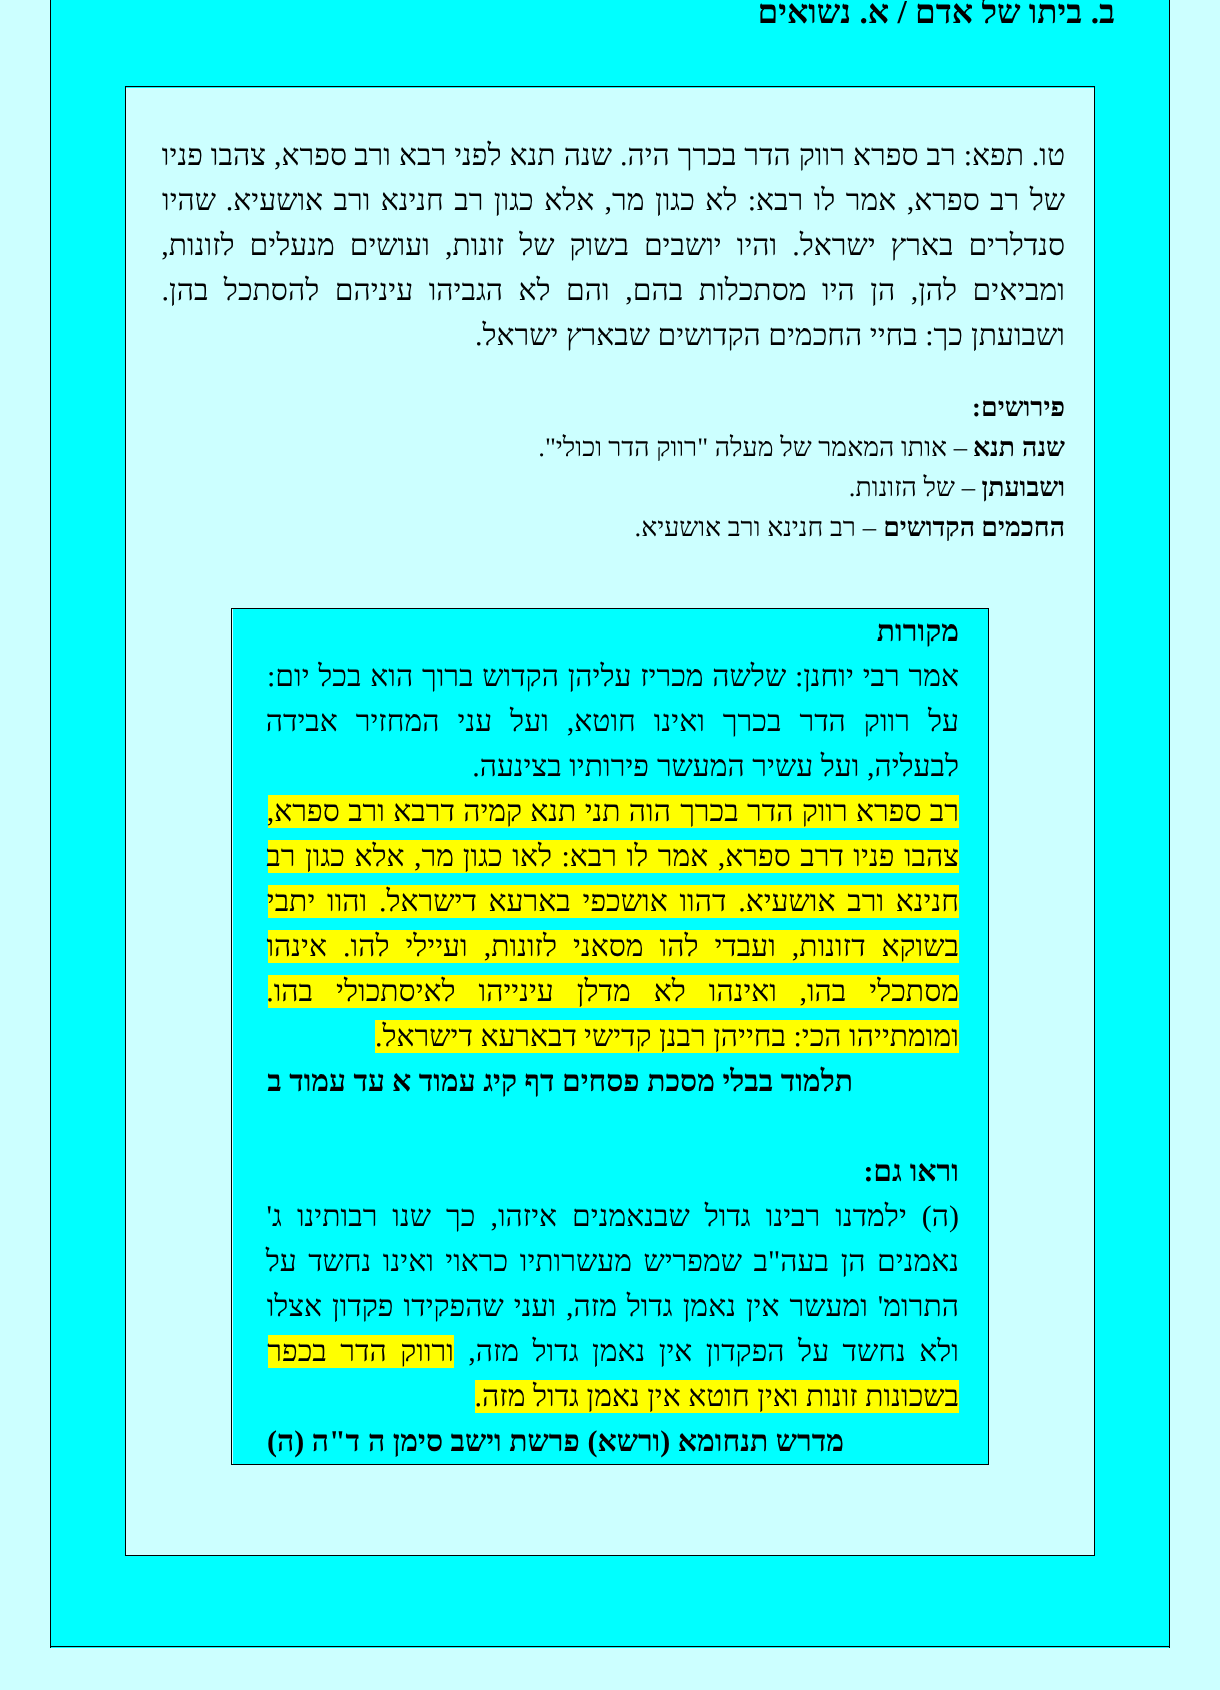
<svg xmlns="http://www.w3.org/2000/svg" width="1220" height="1690">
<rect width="100%" height="100%" fill="#cff"/>
<rect x="51" width="1118" height="1648" fill="#0ff"/>
<rect x="1169" width="1" height="1648" fill="#000"/>
<rect x="50" y="1646" width="1120" height="1" fill="#000"/>
<rect x="50" width="1" height="1648" fill="#000"/>
<text x="1115" y="23" style="font-family:Liberation Serif;font-size:33.25px;font-weight:bold;direction:rtl;fill:#000">ב. ביתו של אדם / א. נשואים</text>
<rect x="126" y="88" width="968" height="1467" fill="#cff"/>
<rect x="125" y="86" width="970" height="1" fill="#000"/>
<rect x="1094" y="86" width="1" height="1470" fill="#000"/>
<rect x="125" y="1555" width="970" height="1" fill="#000"/>
<rect x="125" y="86" width="1" height="1470" fill="#000"/>
<text x="1065" y="165" style="font-family:Liberation Serif;font-size:30px;direction:rtl;fill:#000">טו.</text>
<text x="1024" y="165" word-spacing="0.5" style="font-family:Liberation Serif;font-size:30px;direction:rtl;fill:#000">תפא: רב ספרא רווק הדר בכרך היה. שנה תנא לפני רבא ורב</text>
<text x="347" y="165" word-spacing="0.5" style="font-family:Liberation Serif;font-size:30px;direction:rtl;fill:#000">ספרא, צהבו פניו</text>
<text x="1065" y="210" word-spacing="2.9" style="font-family:Liberation Serif;font-size:30px;direction:rtl;fill:#000">של רב ספרא, אמר לו רבא: לא כגון מר, אלא כגון רב חנינא ורב אושעיא.</text>
<text x="216" y="210" style="font-family:Liberation Serif;font-size:30px;direction:rtl;fill:#000">שהיו</text>
<text x="1065" y="255" word-spacing="7.5" style="font-family:Liberation Serif;font-size:30px;direction:rtl;fill:#000">סנדלרים בארץ ישראל. והיו יושבים בשוק של זונות, ועושים מנעלים לזונות,</text>
<text x="1065" y="300" word-spacing="8" style="font-family:Liberation Serif;font-size:30px;direction:rtl;fill:#000">ומביאים להן, הן היו מסתכלות בהם, והם לא הגביהו עיניהם להסתכל בהן.</text>
<text x="1065" y="345" style="font-family:Liberation Serif;font-size:30px;direction:rtl;fill:#000">ושבועתן</text>
<text x="963" y="345" style="font-family:Liberation Serif;font-size:30px;direction:rtl;fill:#000">כך: בחיי החכמים הקדושים שבארץ ישראל.</text>
<text x="1065" y="416" style="font-family:Liberation Serif;font-size:26.7px;font-weight:bold;direction:rtl;fill:#000">פירושים:</text>
<text x="1065" y="456" style="font-family:Liberation Serif;font-size:26.7px;font-weight:bold;direction:rtl;fill:#000">שנה</text>
<text x="1015" y="456" style="font-family:Liberation Serif;font-size:26.7px;font-weight:bold;direction:rtl;fill:#000">תנא</text>
<text x="967" y="456" style="font-family:Liberation Serif;font-size:26.7px;direction:rtl;fill:#000">– אותו המאמר של מעלה "רווק הדר</text>
<text x="602" y="456" style="font-family:Liberation Serif;font-size:26.7px;direction:rtl;fill:#000">וכולי".</text>
<text x="1065" y="496" style="font-family:Liberation Serif;font-size:26.7px;font-weight:bold;direction:rtl;fill:#000">ושבועתן</text>
<text x="975" y="496" style="font-family:Liberation Serif;font-size:26.7px;direction:rtl;fill:#000">– של הזונות.</text>
<text x="1065" y="536" style="font-family:Liberation Serif;font-size:26.7px;font-weight:bold;direction:rtl;fill:#000">החכמים</text>
<text x="975" y="536" style="font-family:Liberation Serif;font-size:26.7px;font-weight:bold;direction:rtl;fill:#000">הקדושים</text>
<text x="876" y="536" style="font-family:Liberation Serif;font-size:26.7px;direction:rtl;fill:#000">– רב חנינא ורב אושעיא.</text>
<rect x="233" y="609" width="755" height="855" fill="#0ff"/>
<rect x="231" y="608" width="758" height="1" fill="#000"/>
<rect x="988" y="608" width="1" height="857" fill="#000"/>
<rect x="231" y="1464" width="758" height="1" fill="#000"/>
<rect x="231" y="608" width="1" height="857" fill="#000"/>
<text x="959" y="641" style="font-family:Liberation Serif;font-size:30px;font-weight:bold;direction:rtl;fill:#000">מקורות</text>
<text x="959" y="686" word-spacing="1.25" style="font-family:Liberation Serif;font-size:30px;direction:rtl;fill:#000">אמר רבי יוחנן: שלשה מכריז עליהן הקדוש ברוך הוא בכל יום:</text>
<text x="959" y="731" style="font-family:Liberation Serif;font-size:30px;direction:rtl;fill:#000">על</text>
<text x="910" y="731" word-spacing="10.5" style="font-family:Liberation Serif;font-size:30px;direction:rtl;fill:#000">רווק הדר בכרך ואינו חוטא, ועל עני המחזיר אבידה</text>
<text x="959" y="776" style="font-family:Liberation Serif;font-size:30px;direction:rtl;fill:#000">לבעליה, ועל עשיר המעשר</text>
<text x="649" y="776" style="font-family:Liberation Serif;font-size:30px;direction:rtl;fill:#000">פירותיו בצינעה.</text>
<rect x="268" y="795" width="691" height="33" fill="#ff0"/>
<text x="959" y="821" word-spacing="0.75" style="font-family:Liberation Serif;font-size:30px;direction:rtl;fill:#000">רב ספרא רווק הדר בכרך</text>
<text x="671" y="821" word-spacing="0.75" style="font-family:Liberation Serif;font-size:30px;direction:rtl;fill:#000">הוה תני תנא קמיה דרבא ורב ספרא,</text>
<rect x="268" y="840" width="691" height="33" fill="#ff0"/>
<text x="959" y="866" word-spacing="2" style="font-family:Liberation Serif;font-size:30px;direction:rtl;fill:#000">צהבו פניו דרב ספרא, אמר לו רבא: לאו כגון</text>
<text x="454" y="866" word-spacing="2" style="font-family:Liberation Serif;font-size:30px;direction:rtl;fill:#000">מר, אלא כגון רב</text>
<rect x="268" y="885" width="691" height="33" fill="#ff0"/>
<text x="959" y="911" word-spacing="4.25" style="font-family:Liberation Serif;font-size:30px;direction:rtl;fill:#000">חנינא ורב אושעיא. דהוו אושכפי בארעא דישראל. והוו יתבי</text>
<rect x="268" y="930" width="691" height="33" fill="#ff0"/>
<text x="959" y="956" word-spacing="8.5" style="font-family:Liberation Serif;font-size:30px;direction:rtl;fill:#000">בשוקא דזונות, ועבדי להו מסאני לזונות, ועיילי להו. אינהו</text>
<rect x="268" y="975" width="691" height="33" fill="#ff0"/>
<text x="959" y="1001" word-spacing="15.5" style="font-family:Liberation Serif;font-size:30px;direction:rtl;fill:#000">מסתכלי בהו,</text>
<text x="777" y="1001" word-spacing="15.5" style="font-family:Liberation Serif;font-size:30px;direction:rtl;fill:#000">ואינהו לא מדלן עינייהו לאיסתכולי בהו.</text>
<rect x="375" y="1020" width="584" height="33" fill="#ff0"/>
<text x="959" y="1046" style="font-family:Liberation Serif;font-size:30px;direction:rtl;fill:#000">ומומתייהו הכי: בחייהן רבנן קדישי</text>
<text x="577" y="1046" style="font-family:Liberation Serif;font-size:30px;direction:rtl;fill:#000">דבארעא דישראל.</text>
<text x="853" y="1091" style="font-family:Liberation Serif;font-size:30px;font-weight:bold;direction:rtl;fill:#000">תלמוד בבלי מסכת פסחים דף קיג עמוד א</text>
<text x="385" y="1091" style="font-family:Liberation Serif;font-size:30px;font-weight:bold;direction:rtl;fill:#000">עד עמוד ב</text>
<text x="959" y="1181" style="font-family:Liberation Serif;font-size:30px;font-weight:bold;direction:rtl;fill:#000">וראו</text>
<text x="902" y="1181" style="font-family:Liberation Serif;font-size:30px;font-weight:bold;direction:rtl;fill:#000">גם:</text>
<text x="959" y="1226" word-spacing="7.5" style="font-family:Liberation Serif;font-size:30px;direction:rtl;fill:#000">(ה) ילמדנו רבינו גדול שבנאמנים איזהו, כך שנו רבותינו ג'</text>
<text x="959" y="1271" word-spacing="4" style="font-family:Liberation Serif;font-size:30px;direction:rtl;fill:#000">נאמנים הן</text>
<text x="829" y="1271" word-spacing="4" style="font-family:Liberation Serif;font-size:30px;direction:rtl;fill:#000">בעה"ב שמפריש מעשרותיו כראוי ואינו נחשד על</text>
<text x="959" y="1316" word-spacing="2.5" style="font-family:Liberation Serif;font-size:30px;direction:rtl;fill:#000">התרומ' ומעשר אין נאמן גדול</text>
<text x="617" y="1316" word-spacing="2.5" style="font-family:Liberation Serif;font-size:30px;direction:rtl;fill:#000">מזה, ועני שהפקידו פקדון אצלו</text>
<text x="959" y="1361" word-spacing="6" style="font-family:Liberation Serif;font-size:30px;direction:rtl;fill:#000">ולא נחשד על הפקדון אין נאמן גדול מזה,</text>
<rect x="268" y="1335" width="186" height="33" fill="#ff0"/>
<text x="454" y="1361" word-spacing="6" style="font-family:Liberation Serif;font-size:30px;direction:rtl;fill:#000">ורווק הדר בכפר</text>
<rect x="475" y="1380" width="484" height="33" fill="#ff0"/>
<text x="959" y="1406" style="font-family:Liberation Serif;font-size:30px;direction:rtl;fill:#000">בשכונות זונות ואין חוטא אין נאמן גדול מזה.</text>
<text x="844" y="1451" style="font-family:Liberation Serif;font-size:30px;font-weight:bold;direction:rtl;fill:#000">מדרש תנחומא (ורשא) פרשת וישב סימן ה</text>
<text x="360" y="1451" style="font-family:Liberation Serif;font-size:30px;font-weight:bold;direction:rtl;fill:#000">ד"ה (ה)</text>
</svg>
